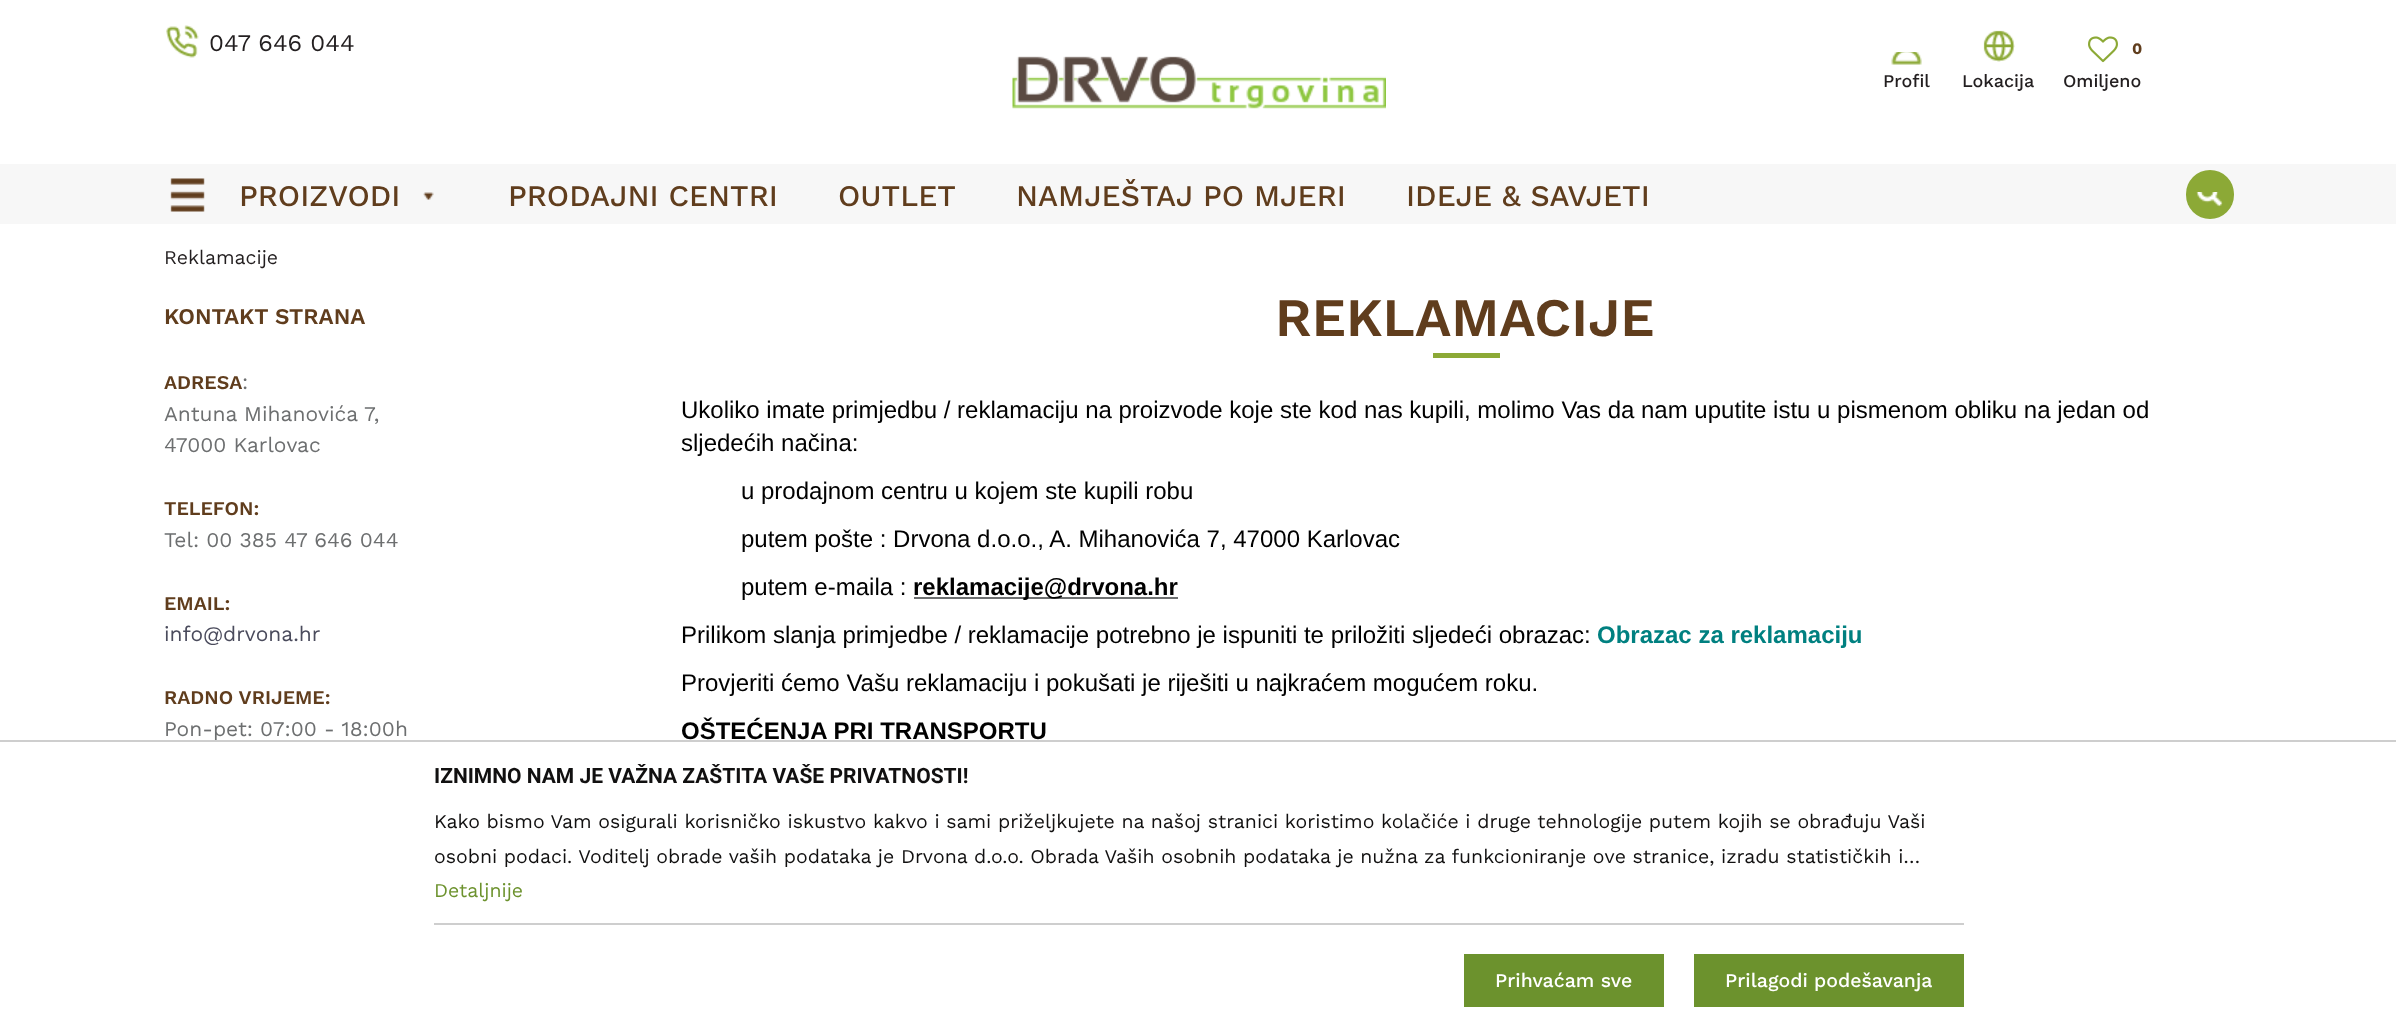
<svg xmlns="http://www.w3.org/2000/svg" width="2396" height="1032">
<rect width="100%" height="100%" fill="#fff"/>
<image x="166" y="25" width="33" height="33" href="media/1.png"/>
<text x="209" y="51" style="font-family:Work Sans;font-size:24px;fill:#231f20">047 646 044</text>
<image x="1012" y="56" width="374" height="53" href="media/2.png"/>
<image x="1891" y="52" width="31" height="13" href="media/3.png"/>
<text x="1883" y="87" style="font-family:Work Sans;font-size:18px;font-weight:500;fill:#231f20">Profil</text>
<image x="1983" y="30" width="32" height="32" href="media/4.png"/>
<text x="1962" y="87" style="font-family:Work Sans;font-size:18px;font-weight:500;fill:#231f20">Lokacija</text>
<text x="2132" y="54" style="font-family:Work Sans;font-size:16px;font-weight:bold;fill:#603d1d">0</text>
<image x="2088" y="36" width="30" height="27" href="media/5.png"/>
<text x="2063" y="87" style="font-family:Work Sans;font-size:18px;font-weight:500;fill:#231f20">Omiljeno</text>
<rect y="164" width="2396" height="60" fill="#f7f7f7"/>
<image x="170" y="178" width="35" height="34" href="media/6.png"/>
<text x="239" y="206" style="font-family:Work Sans;font-size:30px;font-weight:500;fill:#603d1d">PROIZVODI</text>
<image x="423" y="192" width="11" height="8" href="media/7.png"/>
<text x="508" y="206" style="font-family:Work Sans;font-size:30px;font-weight:500;fill:#603d1d">PRODAJNI CENTRI</text>
<text x="838" y="206" style="font-family:Work Sans;font-size:30px;font-weight:500;fill:#603d1d">OUTLET</text>
<text x="1016" y="206" style="font-family:Work Sans;font-size:30px;font-weight:500;fill:#603d1d">NAMJEŠTAJ PO MJERI</text>
<text x="1406" y="206" style="font-family:Work Sans;font-size:30px;font-weight:500;fill:#603d1d">IDEJE &amp; SAVJETI</text>
<rect x="2186" y="170" width="48" height="49" rx="24" fill="#8ca936"/>
<image x="2196" y="192" width="27" height="15" href="media/8.png"/>
<text x="164" y="264" style="font-family:Work Sans;font-size:19.5px;fill:#231f20">Reklamacije</text>
<text x="164" y="324" style="font-family:Work Sans;font-size:22.5px;font-weight:600;fill:#603d1d">KONTAKT STRANA</text>
<text x="164" y="389" style="font-family:Work Sans;font-size:19.5px;font-weight:600;fill:#603d1d">ADRESA</text>
<text x="242" y="389" style="font-family:Work Sans;font-size:21px;fill:#6d6f70">:</text>
<text x="164" y="421" style="font-family:Work Sans;font-size:21px;fill:#6d6f70">Antuna Mihanovića 7,</text>
<text x="164" y="452" style="font-family:Work Sans;font-size:21px;fill:#6d6f70">47000 Karlovac</text>
<text x="164" y="515" style="font-family:Work Sans;font-size:19.5px;font-weight:600;fill:#603d1d">TELEFON:</text>
<text x="164" y="547" style="font-family:Work Sans;font-size:21px;fill:#6d6f70">Tel: 00 385 47 646 044</text>
<text x="164" y="610" style="font-family:Work Sans;font-size:19.5px;font-weight:600;fill:#603d1d">EMAIL:</text>
<text x="164" y="641" style="font-family:Work Sans;font-size:21px;fill:#4a4b5c">info@drvona.hr</text>
<text x="164" y="704" style="font-family:Work Sans;font-size:19.5px;font-weight:600;fill:#603d1d">RADNO VRIJEME:</text>
<text x="164" y="736" style="font-family:Work Sans;font-size:21px;fill:#6d6f70">Pon-pet: 07:00 - 18:00h</text>
<text x="1275" y="336" style="font-family:Work Sans;font-size:54px;font-weight:600;fill:#603d1d">REKLAMACIJE</text>
<rect x="1433" y="353" width="67" height="5" fill="#8ca936"/>
<text x="681" y="418" style="font-family:Liberation Sans;font-size:24px;fill:#000">Ukoliko imate primjedbu / reklamaciju na proizvode koje ste kod nas kupili, molimo Vas da nam uputite istu u pismenom obliku na jedan od</text>
<text x="681" y="451" style="font-family:Liberation Sans;font-size:24px;fill:#000">sljedećih načina:</text>
<text x="741" y="499" style="font-family:Liberation Sans;font-size:24px;fill:#000">u prodajnom centru u kojem ste kupili robu</text>
<text x="741" y="547" style="font-family:Liberation Sans;font-size:24px;fill:#000">putem pošte : Drvona d.o.o., A. Mihanovića 7, 47000 Karlovac</text>
<text x="741" y="595" style="font-family:Liberation Sans;font-size:24px;fill:#000">putem e-maila :</text>
<rect x="914" y="597" width="264" height="2" fill="#6d6f70"/>
<text x="913" y="595" style="font-family:Liberation Sans;font-size:24px;font-weight:bold;fill:#000">reklamacije@drvona.hr</text>
<text x="681" y="643" style="font-family:Liberation Sans;font-size:24px;fill:#000">Prilikom slanja primjedbe / reklamacije potrebno je ispuniti te priložiti sljedeći obrazac:</text>
<text x="1597" y="643" style="font-family:Liberation Sans;font-size:24px;font-weight:bold;fill:#008080">Obrazac za reklamaciju</text>
<text x="681" y="691" style="font-family:Liberation Sans;font-size:24px;fill:#000">Provjeriti ćemo Vašu reklamaciju i pokušati je riješiti u najkraćem mogućem roku.</text>
<text x="681" y="739" style="font-family:Liberation Sans;font-size:24px;font-weight:bold;fill:#000">OŠTEĆENJA PRI TRANSPORTU</text>
<rect y="740" width="2396" height="2" fill="#cecece"/>
<text x="434" y="783" style="font-family:Roboto;font-size:21px;font-weight:bold;fill:#111010">IZNIMNO NAM JE VAŽNA ZAŠTITA VAŠE PRIVATNOSTI!</text>
<text x="434" y="828" style="font-family:Work Sans;font-size:19.5px;fill:#111010">Kako bismo Vam osigurali korisničko iskustvo kakvo i sami priželjkujete na našoj stranici koristimo kolačiće i druge tehnologije putem kojih se obrađuju Vaši</text>
<text x="434" y="863" style="font-family:Work Sans;font-size:19.5px;fill:#111010">osobni podaci. Voditelj obrade vaših podataka je Drvona d.o.o. Obrada Vaših osobnih podataka je nužna za funkcioniranje ove stranice, izradu statističkih i…</text>
<text x="434" y="897" style="font-family:Work Sans;font-size:19.5px;fill:#6c922d">Detaljnije</text>
<rect x="434" y="923" width="1530" height="2" fill="#cecece"/>
<rect x="1464" y="954" width="200" height="53" fill="#6c922d"/>
<text x="1495" y="987" style="font-family:Work Sans;font-size:19.5px;font-weight:500;fill:#fff">Prihvaćam sve</text>
<rect x="1694" y="954" width="270" height="53" fill="#6c922d"/>
<text x="1725" y="987" style="font-family:Work Sans;font-size:19.5px;font-weight:500;fill:#fff">Prilagodi podešavanja</text>
</svg>
